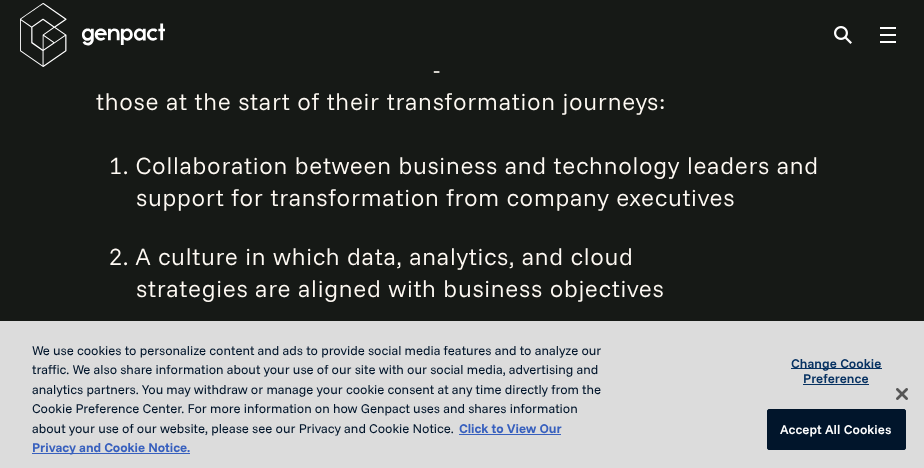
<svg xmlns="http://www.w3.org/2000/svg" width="924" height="468">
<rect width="100%" height="100%" fill="#161916"/>
<image x="20" y="3" width="145" height="64" href="media/1.png"/>
<image x="834" y="26" width="18" height="18" href="media/2.png"/>
<rect x="880" y="34" width="16" height="2" fill="#fff"/>
<rect x="880" y="27" width="16" height="2" fill="#fff"/>
<rect x="880" y="41" width="16" height="2" fill="#fff"/>
<text x="433" y="78" style="font-family:Funnel Sans;font-size:24px;font-weight:300;letter-spacing:0.72px;fill:#fffaf4">-</text>
<text x="96" y="110" style="font-family:Funnel Sans;font-size:24px;font-weight:300;letter-spacing:0.72px;fill:#fffaf4">those at the start of their transformation journeys:</text>
<text x="109" y="174" style="font-family:Funnel Sans;font-size:24px;font-weight:300;letter-spacing:0.72px;fill:#fffaf4">1. Collaboration between business and technology leaders and</text>
<text x="136" y="206" style="font-family:Funnel Sans;font-size:24px;font-weight:300;letter-spacing:0.72px;fill:#fffaf4">support for transformation from company executives</text>
<text x="109" y="265" style="font-family:Funnel Sans;font-size:24px;font-weight:300;letter-spacing:0.72px;fill:#fffaf4">2. A culture in which data, analytics, and cloud</text>
<text x="136" y="297" style="font-family:Funnel Sans;font-size:24px;font-weight:300;letter-spacing:0.72px;fill:#fffaf4">strategies are aligned with business objectives</text>
<rect y="321" width="924" height="147" fill="#dcdcdc"/>
<text x="32" y="355" style="font-family:Funnel Sans;font-size:13px;fill:#01152b">We use cookies to personalize content and ads to provide social media features and to analyze our</text>
<text x="32" y="374" style="font-family:Funnel Sans;font-size:13px;fill:#01152b">traffic. We also share information about your use of our site with our social media, advertising and</text>
<text x="32" y="394" style="font-family:Funnel Sans;font-size:13px;fill:#01152b">analytics partners. You may withdraw or manage your cookie consent at any time directly from the</text>
<text x="32" y="413" style="font-family:Funnel Sans;font-size:13px;fill:#01152b">Cookie Preference Center. For more information on how Genpact uses and shares information</text>
<text x="32" y="433" style="font-family:Funnel Sans;font-size:13px;fill:#01152b">about your use of our website, please see our Privacy and Cookie Notice.</text>
<text x="459" y="433" style="font-family:Funnel Sans;font-size:13px;font-weight:bold;fill:#3860be">Click to View Our</text>
<rect x="459" y="434" width="102" height="1" fill="#3860be"/>
<rect x="32" y="453" width="158" height="1" fill="#3860be"/>
<text x="32" y="452" style="font-family:Funnel Sans;font-size:13px;font-weight:bold;fill:#3860be">Privacy and Cookie Notice.</text>
<rect x="791" y="368" width="91" height="1" fill="#073262"/>
<text x="791" y="368" style="font-family:Funnel Sans;font-size:13px;font-weight:600;letter-spacing:0.1px;fill:#073262">Change Cookie</text>
<text x="803" y="383" style="font-family:Funnel Sans;font-size:13px;font-weight:600;letter-spacing:0.1px;fill:#073262">Preference</text>
<rect x="803" y="384" width="66" height="1" fill="#073262"/>
<rect x="767.5" y="409.5" width="138" height="40" rx="1.5" fill="#01152b" stroke="#01152b"/>
<text x="780" y="434" style="font-family:Funnel Sans;font-size:13px;font-weight:600;letter-spacing:0.1px;fill:#fff">Accept All Cookies</text>
<image x="896" y="388" width="12" height="12" href="media/3.png"/>
</svg>
